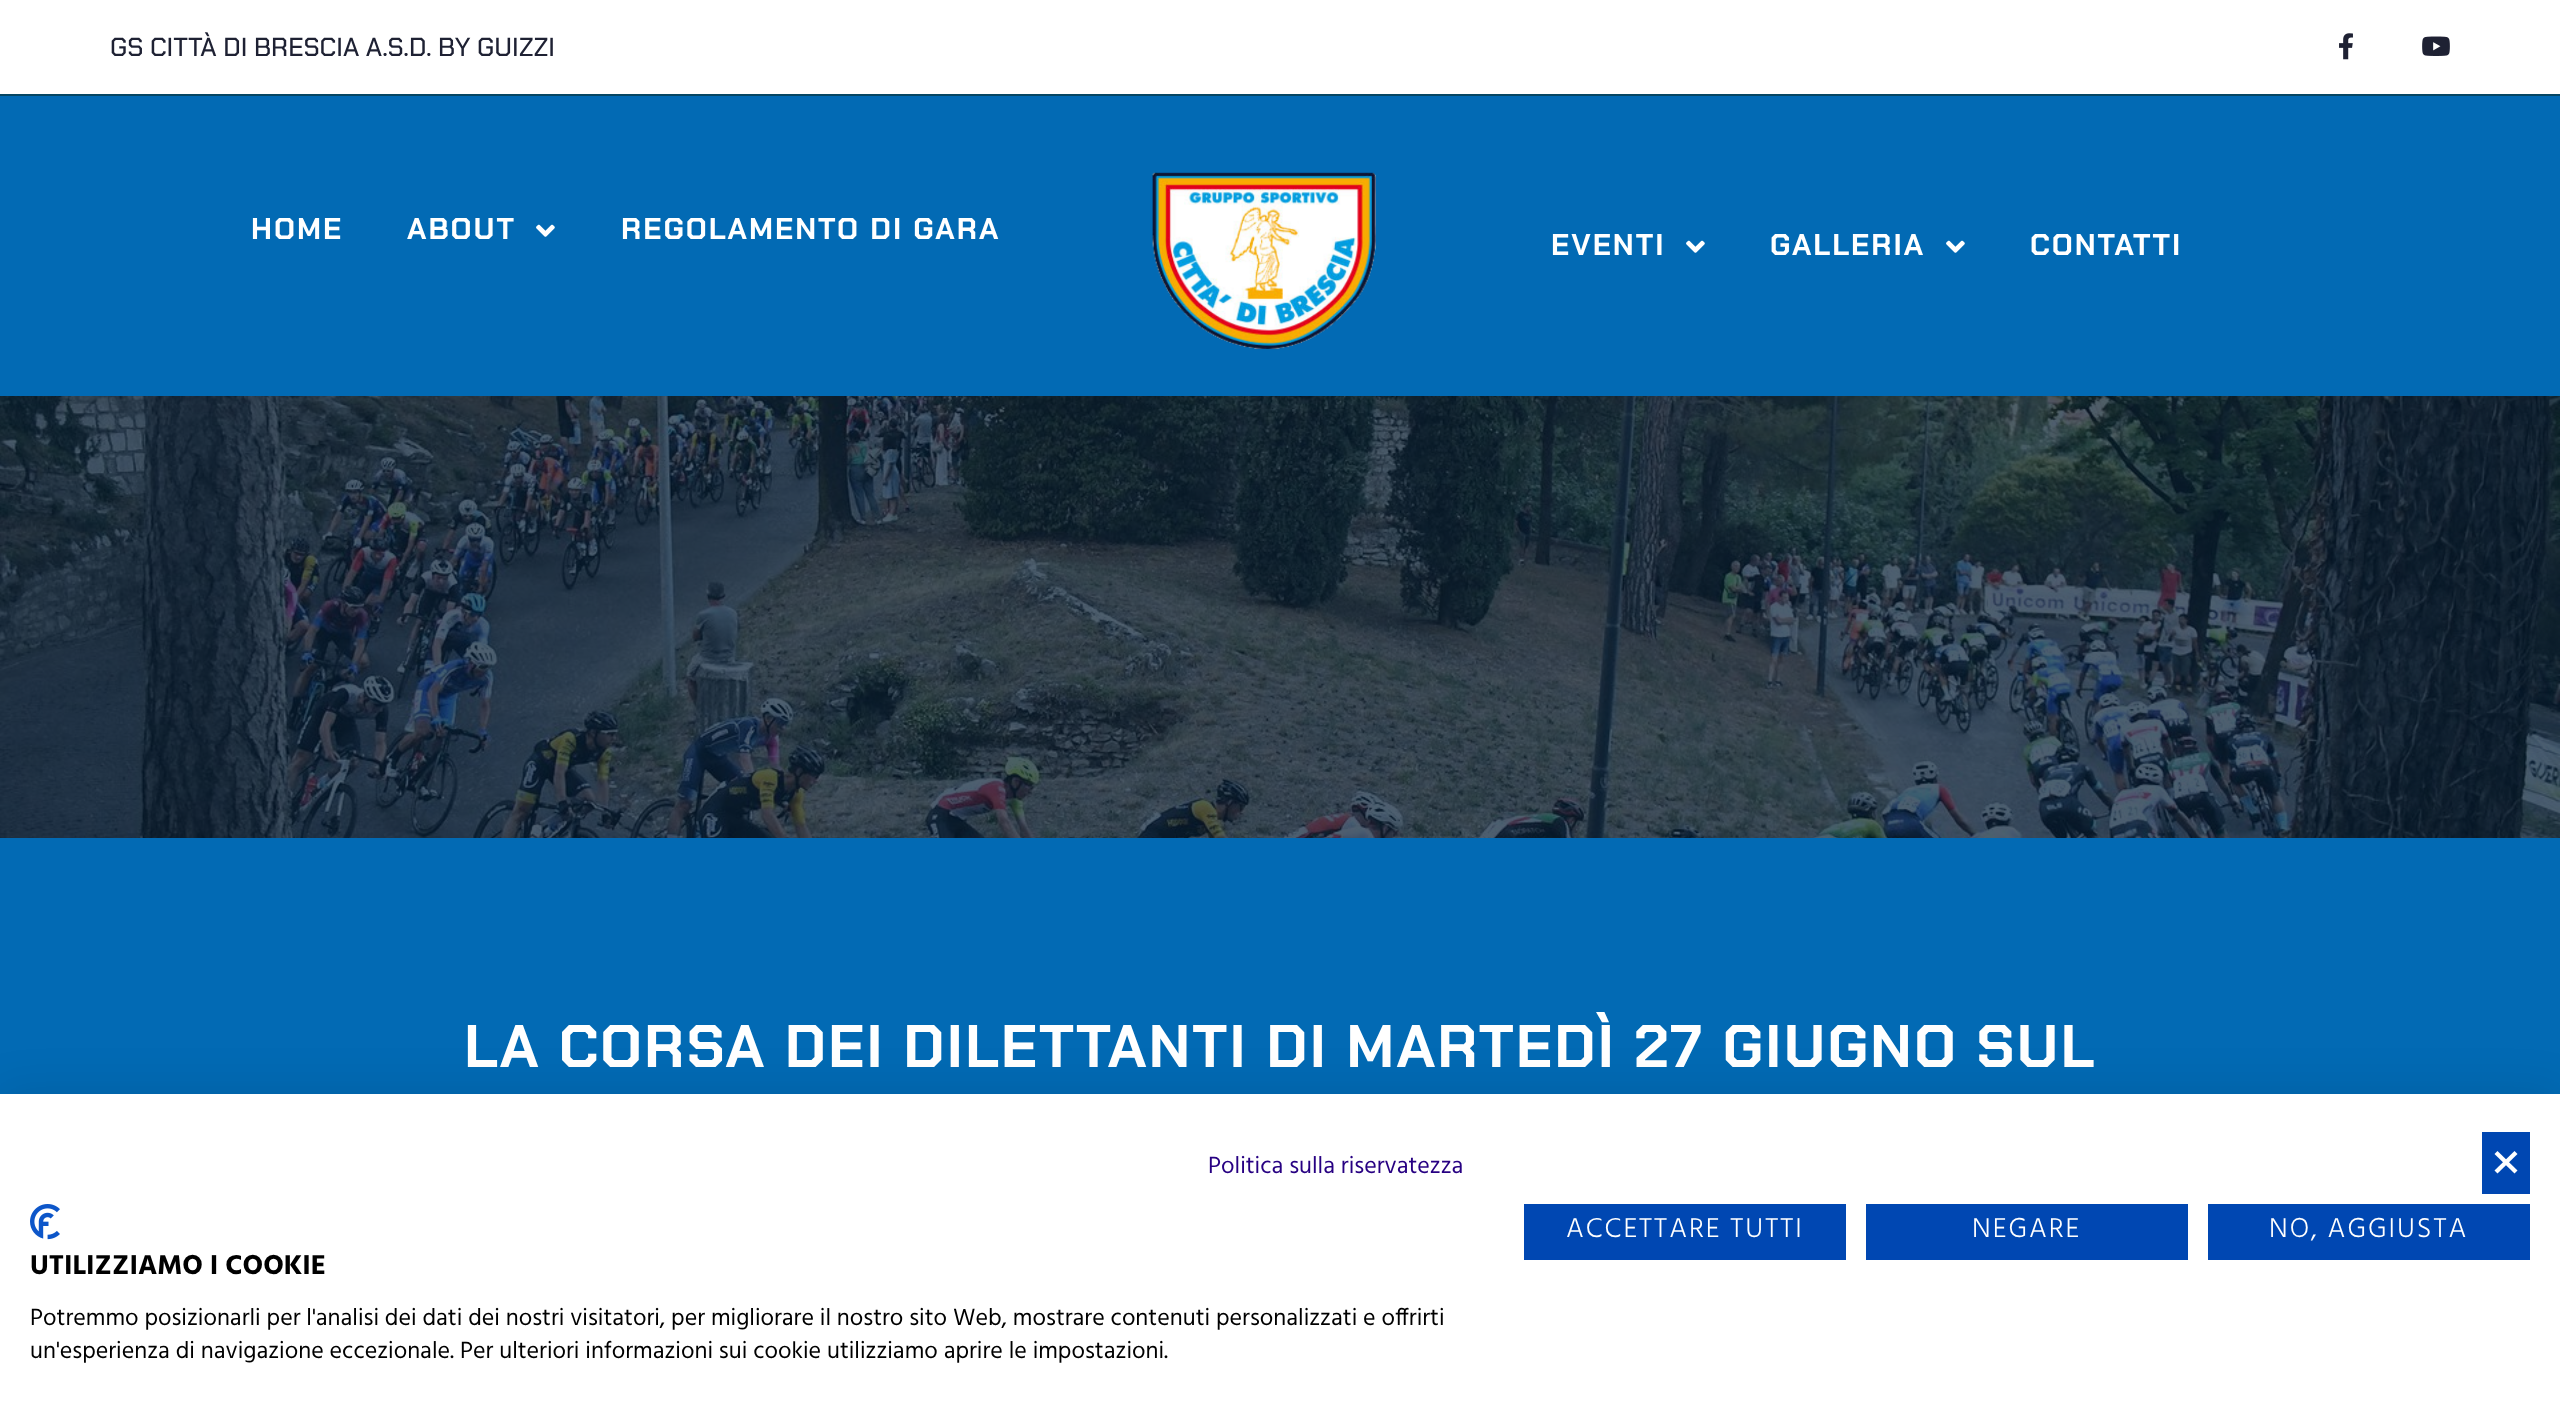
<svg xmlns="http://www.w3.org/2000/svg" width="2560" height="1423">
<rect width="100%" height="100%" fill="#026ab4"/>
<rect width="2560" height="94" fill="#fff"/>
<rect y="94" width="2560" height="2" fill="#064663"/>
<text x="110" y="56" style="font-family:Chakra Petch;font-size:26px;font-weight:500;fill:#1e2133">GS CITTÀ DI BRESCIA A.S.D. BY GUIZZI</text>
<image x="2339" y="33" width="14" height="27" href="media/1.png"/>
<image x="2422" y="36" width="28" height="20" href="media/2.png"/>
<text x="251" y="239" style="font-family:Chakra Petch;font-size:30px;font-weight:bold;letter-spacing:2px;fill:#fff">HOME</text>
<text x="407" y="239" style="font-family:Chakra Petch;font-size:30px;font-weight:bold;letter-spacing:2px;fill:#fff">ABOUT</text>
<image x="536" y="224" width="19" height="13" href="media/3.png"/>
<text x="621" y="239" style="font-family:Chakra Petch;font-size:30px;font-weight:bold;letter-spacing:2px;fill:#fff">REGOLAMENTO DI GARA</text>
<image x="1152" y="172" width="224" height="177" href="media/4.png"/>
<text x="1551" y="255" style="font-family:Chakra Petch;font-size:30px;font-weight:bold;letter-spacing:2px;fill:#fff">EVENTI</text>
<image x="1686" y="240" width="19" height="13" href="media/3.png"/>
<text x="1770" y="255" style="font-family:Chakra Petch;font-size:30px;font-weight:bold;letter-spacing:2px;fill:#fff">GALLERIA</text>
<image x="1946" y="240" width="19" height="13" href="media/3.png"/>
<text x="2030" y="255" style="font-family:Chakra Petch;font-size:30px;font-weight:bold;letter-spacing:2px;fill:#fff">CONTATTI</text>
<image x="0" y="396" width="2560" height="442" href="media/5.png"/>
<text x="464" y="1067" style="font-family:Chakra Petch;font-size:60px;font-weight:bold;letter-spacing:2px;fill:#fff">LA CORSA DEI DILETTANTI DI MARTEDÌ 27 GIUGNO SUL</text>
<rect y="1094" width="2560" height="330" fill="#0000001a" filter="blur(24px)"/>
<rect y="1094" width="2560" height="329" fill="#fff"/>
<text x="1208" y="1173" style="font-family:Hind;font-size:24px;fill:#270082">Politica sulla riservatezza</text>
<rect x="2482" y="1132" width="48" height="62" fill="#0047b2"/>
<path d="M2514.5 1151l3 3l-20 19.5l-3-3z" fill="#fff"/>
<path d="M2494.5 1154l3-3l20 19.5l-3 3z" fill="#fff"/>
<rect x="1524" y="1204" width="322" height="56" fill="#0047b2"/>
<text x="1566" y="1237" style="font-family:Hind;font-size:28px;font-weight:300;letter-spacing:2px;fill:#fff">ACCETTARE TUTTI</text>
<rect x="1866" y="1204" width="322" height="56" fill="#0047b2"/>
<text x="1972" y="1237" style="font-family:Hind;font-size:28px;font-weight:300;letter-spacing:2px;fill:#fff">NEGARE</text>
<rect x="2208" y="1204" width="322" height="56" fill="#0047b2"/>
<text x="2269" y="1237" style="font-family:Hind;font-size:28px;font-weight:300;letter-spacing:2px;fill:#fff">NO, AGGIUSTA</text>
<image x="30" y="1204" width="30" height="36" href="media/6.png"/>
<text x="30" y="1274" style="font-family:Hind;font-size:28px;font-weight:bold;fill:#000">UTILIZZIAMO I COOKIE</text>
<text x="30" y="1325" style="font-family:Hind;font-size:24px;fill:#000">Potremmo posizionarli per l'analisi dei dati dei nostri visitatori, per migliorare il nostro sito Web, mostrare contenuti personalizzati e offrirti</text>
<text x="30" y="1358" style="font-family:Hind;font-size:24px;fill:#000">un'esperienza di navigazione eccezionale. Per ulteriori informazioni sui cookie utilizziamo aprire le impostazioni.</text>
</svg>
